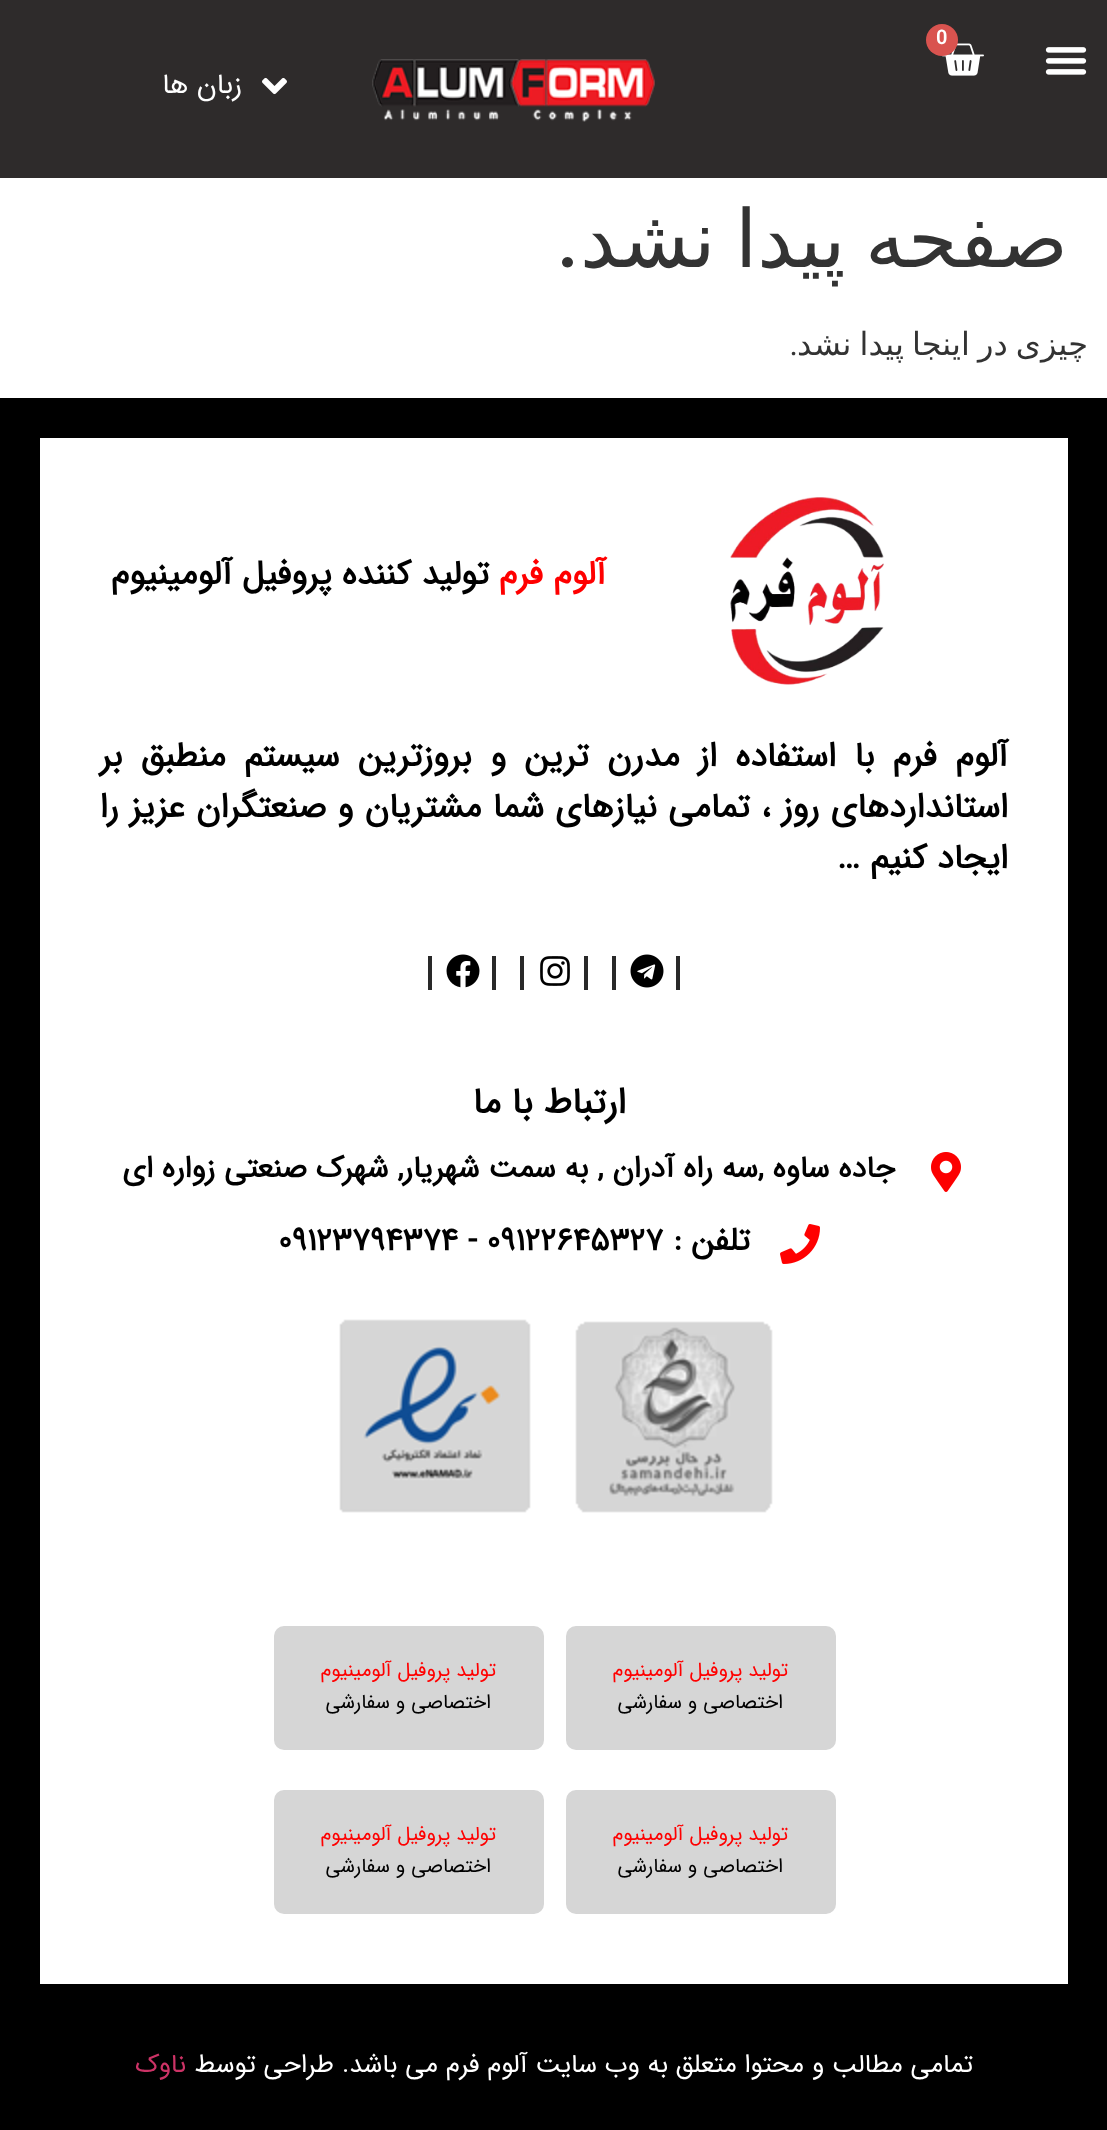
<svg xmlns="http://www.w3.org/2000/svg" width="1107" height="2130">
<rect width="100%" height="100%" fill="#fff"/>
<rect width="1107" height="178" fill="#2e2b2b"/>
<image x="941" y="43" width="43" height="33" href="media/1.png"/>
<circle cx="942" cy="40" r="16" fill="#d9534f"/>
<text x="936" y="44" style="font-family:Vazirmatn;font-size:20px;font-weight:600;fill:#fff">0</text>
<image x="1045" y="47" width="42" height="28" href="media/2.png"/>
<image x="372" y="59" width="283" height="63" href="media/3.png"/>
<image x="262" y="77" width="25" height="18" href="media/4.png"/>
<text x="242" y="93" style="font-family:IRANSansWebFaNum;font-size:28px;direction:rtl;fill:#fff">زبان ها</text>
<text x="1068" y="267" word-spacing="-6" style="font-family:DejaVu Sans;font-size:80px;direction:rtl;fill:#333">صفحه پیدا نشد</text>
<text x="579" y="267" style="font-family:Roboto;font-size:80px;font-weight:500;direction:rtl;fill:#333">.</text>
<text x="1088" y="355" word-spacing="-2" style="font-family:DejaVu Sans;font-size:32px;direction:rtl;fill:#333">چیزی در اینجا پیدا نشد</text>
<text x="798" y="355" style="font-family:Roboto;font-size:32px;direction:rtl;fill:#333">.</text>
<rect x="40" y="398" width="1028" height="40" fill="#000"/>
<rect x="1068" y="398" width="39" height="1586" fill="#000"/>
<rect y="398" width="40" height="1586" fill="#000"/>
<image x="730" y="497" width="154" height="188" href="media/5.png"/>
<text x="606" y="584" style="font-family:IRANSansWebFaNum;font-size:34px;font-weight:bold;direction:rtl;fill:#f00">آلوم فرم</text>
<text x="489" y="584" style="font-family:IRANSansWebFaNum;font-size:34px;font-weight:bold;direction:rtl;fill:#000">تولید کننده پروفیل آلومینیوم</text>
<text x="1008" y="766" word-spacing="8.25" style="font-family:IRANSansWebFaNum;font-size:34px;font-weight:bold;direction:rtl;fill:#000">آلوم فرم با استفاده از مدرن ترین و بروزترین سیستم منطبق بر</text>
<text x="1008" y="817" word-spacing="1" style="font-family:IRANSansWebFaNum;font-size:34px;font-weight:bold;direction:rtl;fill:#000">استانداردهای روز ، تمامی نیازهای شما مشتریان و صنعتگران عزیز را</text>
<text x="1008" y="868" style="font-family:IRANSansWebFaNum;font-size:34px;font-weight:bold;direction:rtl;fill:#000">ایجاد کنیم …</text>
<rect x="676" y="956" width="4" height="34" fill="#292929"/>
<rect x="612" y="956" width="4" height="34" fill="#292929"/>
<image x="630" y="954" width="34" height="34" href="media/6.png"/>
<rect x="584" y="956" width="4" height="34" fill="#292929"/>
<rect x="520" y="956" width="4" height="34" fill="#292929"/>
<image x="540" y="956" width="30" height="30" href="media/7.png"/>
<rect x="492" y="956" width="4" height="34" fill="#292929"/>
<rect x="428" y="956" width="4" height="34" fill="#292929"/>
<image x="446" y="954" width="34" height="34" href="media/8.png"/>
<text x="626" y="1113" style="font-family:IRANSansWebFaNum;font-size:36px;font-weight:bold;direction:rtl;fill:#000">ارتباط با ما</text>
<image x="931" y="1152" width="30" height="40" href="media/9.png"/>
<text x="895" y="1177" style="font-family:IRANSansWebFaNum;font-size:30px;font-weight:bold;direction:rtl;fill:#000">جاده ساوه ,سه راه آدران , به سمت شهریار, شهرک صنعتی زواره ای</text>
<image x="780" y="1224" width="40" height="40" href="media/10.png"/>
<text x="750" y="1250" style="font-family:IRANSansWebFaNum;font-size:32px;font-weight:bold;direction:rtl;fill:#000">تلفن :</text>
<text x="278" y="1250" style="font-family:IRANSansWebFaNum;font-size:32px;font-weight:bold;fill:#000">09123794374 - 09122645327</text>
<image x="575" y="1321" width="198" height="192" href="media/11.png"/>
<image x="339" y="1319" width="192" height="194" href="media/12.png"/>
<rect x="566" y="1626" width="270" height="124" rx="10" fill="#d6d6d6"/>
<text x="788" y="1676" style="font-family:IRANSansWebFaNum;font-size:20px;direction:rtl;fill:#f00">تولید پروفیل آلومینیوم</text>
<text x="783" y="1708" style="font-family:IRANSansWebFaNum;font-size:20px;direction:rtl;fill:#000">اختصاصی و سفارشی</text>
<rect x="274" y="1626" width="270" height="124" rx="10" fill="#d6d6d6"/>
<text x="496" y="1676" style="font-family:IRANSansWebFaNum;font-size:20px;direction:rtl;fill:#f00">تولید پروفیل آلومینیوم</text>
<text x="491" y="1708" style="font-family:IRANSansWebFaNum;font-size:20px;direction:rtl;fill:#000">اختصاصی و سفارشی</text>
<rect x="566" y="1790" width="270" height="124" rx="10" fill="#d6d6d6"/>
<text x="788" y="1840" style="font-family:IRANSansWebFaNum;font-size:20px;direction:rtl;fill:#f00">تولید پروفیل آلومینیوم</text>
<text x="783" y="1872" style="font-family:IRANSansWebFaNum;font-size:20px;direction:rtl;fill:#000">اختصاصی و سفارشی</text>
<rect x="274" y="1790" width="270" height="124" rx="10" fill="#d6d6d6"/>
<text x="496" y="1840" style="font-family:IRANSansWebFaNum;font-size:20px;direction:rtl;fill:#f00">تولید پروفیل آلومینیوم</text>
<text x="491" y="1872" style="font-family:IRANSansWebFaNum;font-size:20px;direction:rtl;fill:#000">اختصاصی و سفارشی</text>
<rect y="1984" width="1107" height="146" fill="#000"/>
<text x="973" y="2072" style="font-family:IRANSansWebFaNum;font-size:26px;direction:rtl;fill:#fff">تمامی مطالب و محتوا متعلق به وب سایت آلوم فرم می باشد. طراحی توسط</text>
<text x="186" y="2072" style="font-family:IRANSansWebFaNum;font-size:26px;direction:rtl;fill:#c36">ناوک</text>
</svg>
